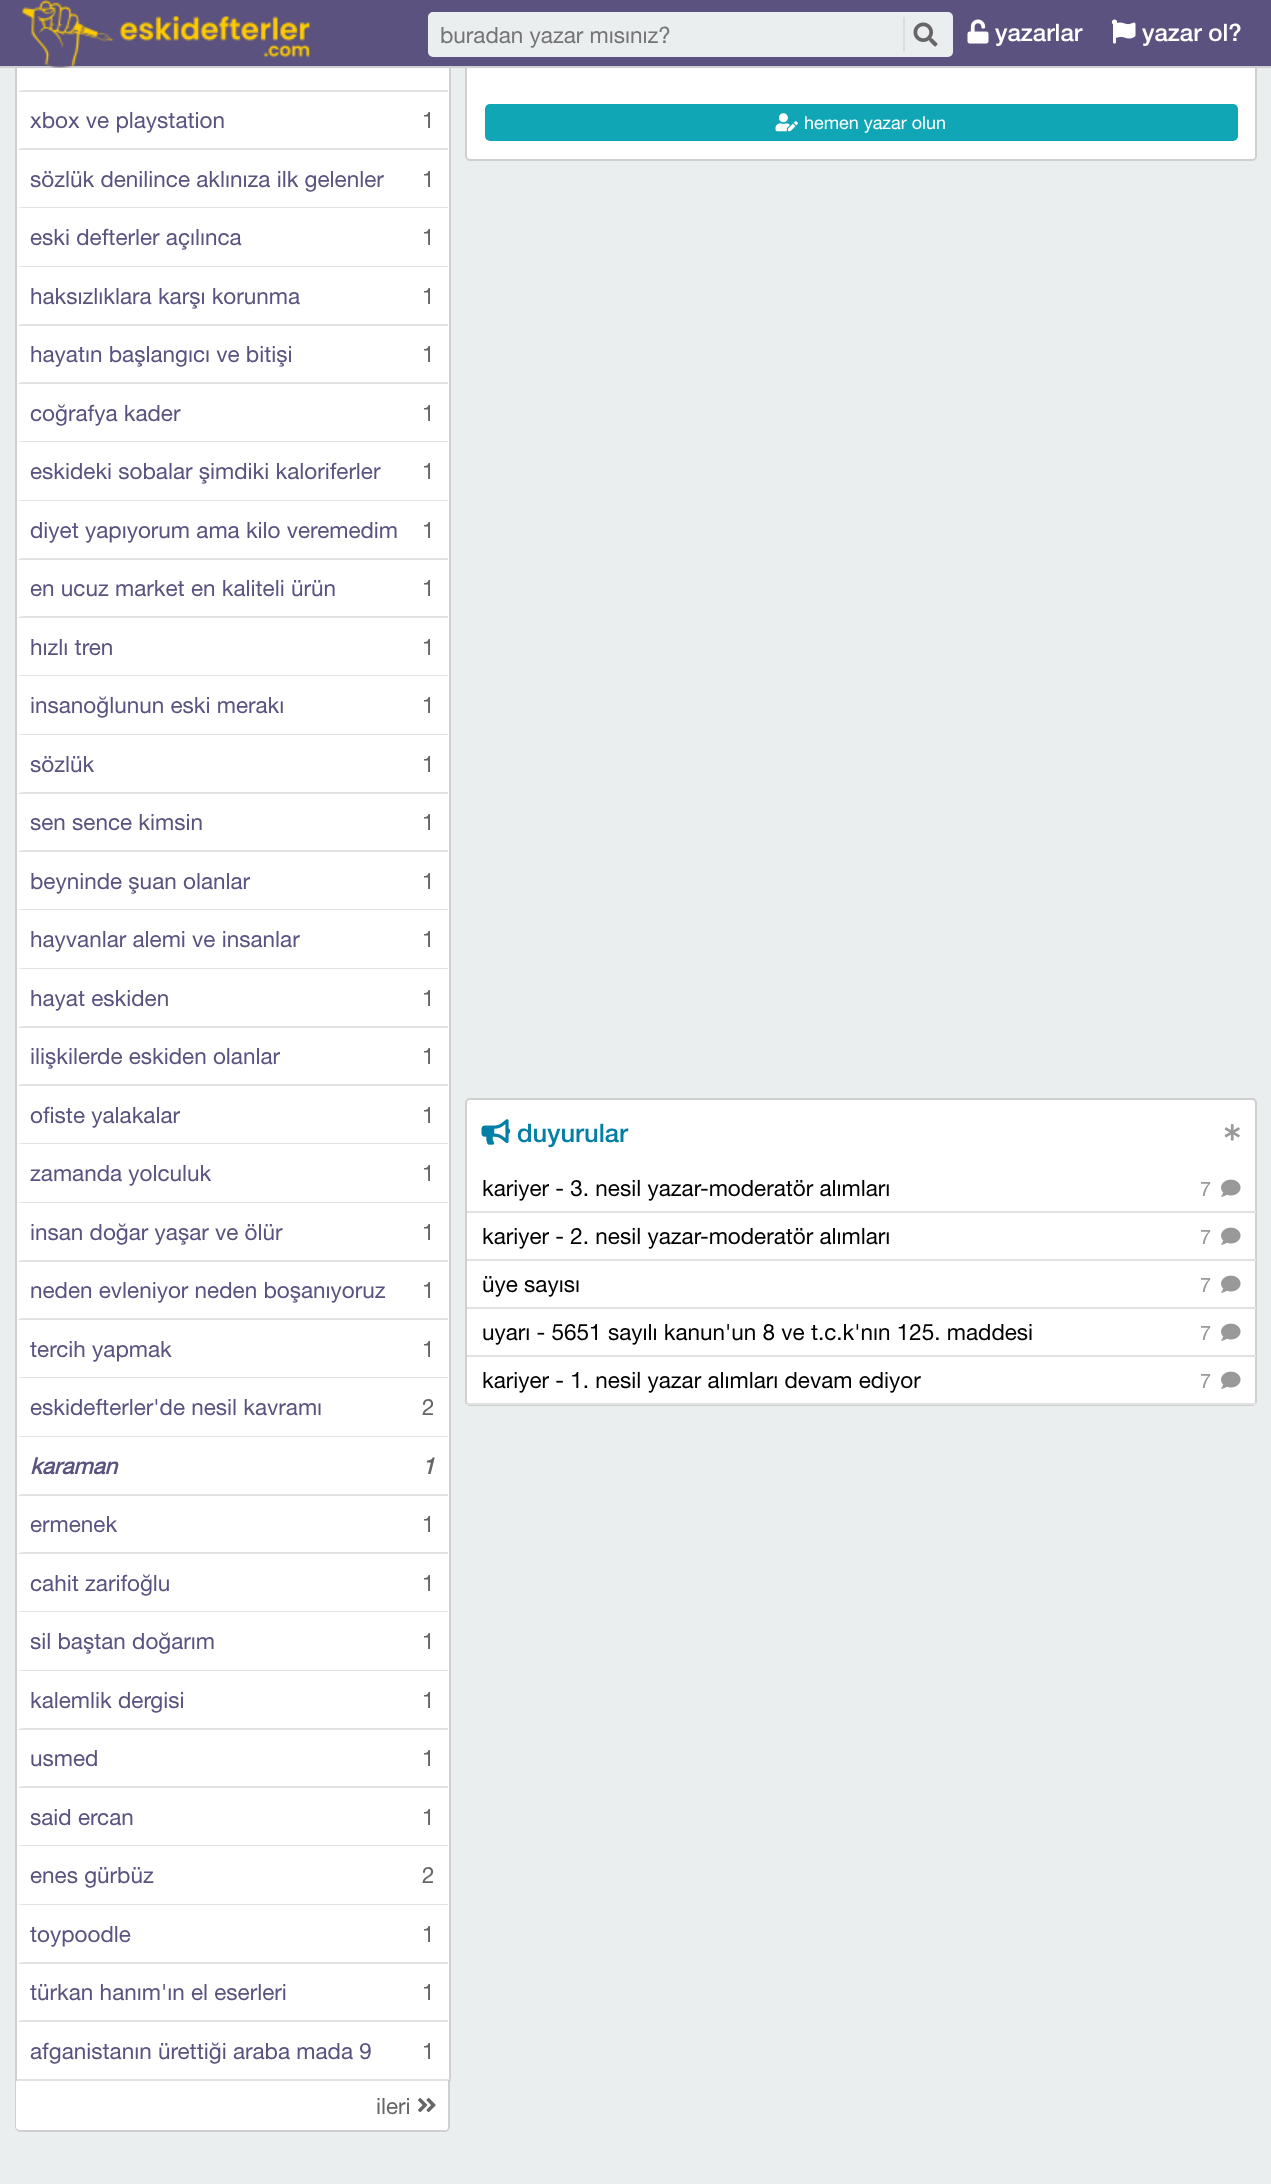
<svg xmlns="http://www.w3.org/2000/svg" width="1271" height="2184">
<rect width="100%" height="100%" fill="#ebeeef"/>
<rect x="466" y="-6" width="790" height="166" rx="4" fill="#fff" stroke="#cfcfcf" stroke-width="2"/>
<rect width="1271" height="66" fill="#5b5280"/>
<rect y="66" width="1271" height="2" fill="#d0d1d5"/>
<image x="22" y="0" width="289" height="68" href="media/1.png"/>
<rect x="429" y="13" width="523" height="43" rx="4" fill="#ebeeef" stroke="#ebeeef" stroke-width="2"/>
<text x="440" y="43" style="font-family:'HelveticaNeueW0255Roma';font-size:22.5px;fill:#757575">buradan yazar mısınız?</text>
<rect x="903" y="17" width="2" height="34" fill="#ddd"/>
<image x="913" y="22" width="25" height="25" href="media/2.png"/>
<image x="967" y="19" width="22" height="25" href="media/3.png"/>
<text x="995" y="41" style="font-family:'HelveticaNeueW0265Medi';font-size:24px;font-weight:500;fill:#fff">yazarlar</text>
<image x="1111" y="19" width="25" height="25" href="media/4.png"/>
<text x="1142" y="41" style="font-family:'HelveticaNeueW0265Medi';font-size:24px;font-weight:500;fill:#fff">yazar ol?</text>
<rect x="17" y="68" width="432" height="2011" fill="#fff"/>
<rect x="449" y="68" width="2" height="2013" fill="#cfcfcf"/>
<rect x="15" y="2079" width="435" height="2" fill="#e2e2e2"/>
<rect x="15" y="68" width="2" height="2013" fill="#cfcfcf"/>
<path d="M448 92h-432l6-2h426z" fill="#e2e2e2"/>
<path d="M448 150h-432l6-2h426z" fill="#e2e2e2"/>
<text x="30" y="128" style="font-family:'HelveticaNeueW0255Roma';font-size:22.5px;fill:#5b5280">xbox ve playstation</text>
<text x="422" y="128" style="font-family:'HelveticaNeueW0255Roma';font-size:22.5px;fill:#666">1</text>
<path d="M448 208h-432l6-1h426z" fill="#e2e2e2"/>
<text x="30" y="187" style="font-family:'HelveticaNeueW0255Roma';font-size:22.5px;fill:#5b5280">sözlük denilince aklınıza ilk gelenler</text>
<text x="422" y="187" style="font-family:'HelveticaNeueW0255Roma';font-size:22.5px;fill:#666">1</text>
<path d="M448 267h-432l6-1h426z" fill="#e2e2e2"/>
<text x="30" y="245" style="font-family:'HelveticaNeueW0255Roma';font-size:22.5px;fill:#5b5280">eski defterler açılınca</text>
<text x="422" y="245" style="font-family:'HelveticaNeueW0255Roma';font-size:22.5px;fill:#666">1</text>
<path d="M448 326h-432l6-2h426z" fill="#e2e2e2"/>
<text x="30" y="304" style="font-family:'HelveticaNeueW0255Roma';font-size:22.5px;fill:#5b5280">haksızlıklara karşı korunma</text>
<text x="422" y="304" style="font-family:'HelveticaNeueW0255Roma';font-size:22.5px;fill:#666">1</text>
<path d="M448 384h-432l6-2h426z" fill="#e2e2e2"/>
<text x="30" y="362" style="font-family:'HelveticaNeueW0255Roma';font-size:22.5px;fill:#5b5280">hayatın başlangıcı ve bitişi</text>
<text x="422" y="362" style="font-family:'HelveticaNeueW0255Roma';font-size:22.5px;fill:#666">1</text>
<path d="M448 442h-432l6-1h426z" fill="#e2e2e2"/>
<text x="30" y="421" style="font-family:'HelveticaNeueW0255Roma';font-size:22.5px;fill:#5b5280">coğrafya kader</text>
<text x="422" y="421" style="font-family:'HelveticaNeueW0255Roma';font-size:22.5px;fill:#666">1</text>
<path d="M448 501h-432l6-1h426z" fill="#e2e2e2"/>
<text x="30" y="479" style="font-family:'HelveticaNeueW0255Roma';font-size:22.5px;fill:#5b5280">eskideki sobalar şimdiki kaloriferler</text>
<text x="422" y="479" style="font-family:'HelveticaNeueW0255Roma';font-size:22.5px;fill:#666">1</text>
<path d="M448 560h-432l6-2h426z" fill="#e2e2e2"/>
<text x="30" y="538" style="font-family:'HelveticaNeueW0255Roma';font-size:22.5px;fill:#5b5280">diyet yapıyorum ama kilo veremedim</text>
<text x="422" y="538" style="font-family:'HelveticaNeueW0255Roma';font-size:22.5px;fill:#666">1</text>
<path d="M448 618h-432l6-2h426z" fill="#e2e2e2"/>
<text x="30" y="596" style="font-family:'HelveticaNeueW0255Roma';font-size:22.5px;fill:#5b5280">en ucuz market en kaliteli ürün</text>
<text x="422" y="596" style="font-family:'HelveticaNeueW0255Roma';font-size:22.5px;fill:#666">1</text>
<path d="M448 676h-432l6-1h426z" fill="#e2e2e2"/>
<text x="30" y="655" style="font-family:'HelveticaNeueW0255Roma';font-size:22.5px;fill:#5b5280">hızlı tren</text>
<text x="422" y="655" style="font-family:'HelveticaNeueW0255Roma';font-size:22.5px;fill:#666">1</text>
<path d="M448 735h-432l6-1h426z" fill="#e2e2e2"/>
<text x="30" y="713" style="font-family:'HelveticaNeueW0255Roma';font-size:22.5px;fill:#5b5280">insanoğlunun eski merakı</text>
<text x="422" y="713" style="font-family:'HelveticaNeueW0255Roma';font-size:22.5px;fill:#666">1</text>
<path d="M448 794h-432l6-2h426z" fill="#e2e2e2"/>
<text x="30" y="772" style="font-family:'HelveticaNeueW0255Roma';font-size:22.5px;fill:#5b5280">sözlük</text>
<text x="422" y="772" style="font-family:'HelveticaNeueW0255Roma';font-size:22.5px;fill:#666">1</text>
<path d="M448 852h-432l6-2h426z" fill="#e2e2e2"/>
<text x="30" y="830" style="font-family:'HelveticaNeueW0255Roma';font-size:22.5px;fill:#5b5280">sen sence kimsin</text>
<text x="422" y="830" style="font-family:'HelveticaNeueW0255Roma';font-size:22.5px;fill:#666">1</text>
<path d="M448 910h-432l6-1h426z" fill="#e2e2e2"/>
<text x="30" y="889" style="font-family:'HelveticaNeueW0255Roma';font-size:22.5px;fill:#5b5280">beyninde şuan olanlar</text>
<text x="422" y="889" style="font-family:'HelveticaNeueW0255Roma';font-size:22.5px;fill:#666">1</text>
<path d="M448 969h-432l6-1h426z" fill="#e2e2e2"/>
<text x="30" y="947" style="font-family:'HelveticaNeueW0255Roma';font-size:22.5px;fill:#5b5280">hayvanlar alemi ve insanlar</text>
<text x="422" y="947" style="font-family:'HelveticaNeueW0255Roma';font-size:22.5px;fill:#666">1</text>
<path d="M448 1028h-432l6-2h426z" fill="#e2e2e2"/>
<text x="30" y="1006" style="font-family:'HelveticaNeueW0255Roma';font-size:22.5px;fill:#5b5280">hayat eskiden</text>
<text x="422" y="1006" style="font-family:'HelveticaNeueW0255Roma';font-size:22.5px;fill:#666">1</text>
<path d="M448 1086h-432l6-2h426z" fill="#e2e2e2"/>
<text x="30" y="1064" style="font-family:'HelveticaNeueW0255Roma';font-size:22.5px;fill:#5b5280">ilişkilerde eskiden olanlar</text>
<text x="422" y="1064" style="font-family:'HelveticaNeueW0255Roma';font-size:22.5px;fill:#666">1</text>
<path d="M448 1144h-432l6-1h426z" fill="#e2e2e2"/>
<text x="30" y="1123" style="font-family:'HelveticaNeueW0255Roma';font-size:22.5px;fill:#5b5280">ofiste yalakalar</text>
<text x="422" y="1123" style="font-family:'HelveticaNeueW0255Roma';font-size:22.5px;fill:#666">1</text>
<path d="M448 1203h-432l6-1h426z" fill="#e2e2e2"/>
<text x="30" y="1181" style="font-family:'HelveticaNeueW0255Roma';font-size:22.5px;fill:#5b5280">zamanda yolculuk</text>
<text x="422" y="1181" style="font-family:'HelveticaNeueW0255Roma';font-size:22.5px;fill:#666">1</text>
<path d="M448 1262h-432l6-2h426z" fill="#e2e2e2"/>
<text x="30" y="1240" style="font-family:'HelveticaNeueW0255Roma';font-size:22.5px;fill:#5b5280">insan doğar yaşar ve ölür</text>
<text x="422" y="1240" style="font-family:'HelveticaNeueW0255Roma';font-size:22.5px;fill:#666">1</text>
<path d="M448 1320h-432l6-2h426z" fill="#e2e2e2"/>
<text x="30" y="1298" style="font-family:'HelveticaNeueW0255Roma';font-size:22.5px;fill:#5b5280">neden evleniyor neden boşanıyoruz</text>
<text x="422" y="1298" style="font-family:'HelveticaNeueW0255Roma';font-size:22.5px;fill:#666">1</text>
<path d="M448 1378h-432l6-1h426z" fill="#e2e2e2"/>
<text x="30" y="1357" style="font-family:'HelveticaNeueW0255Roma';font-size:22.5px;fill:#5b5280">tercih yapmak</text>
<text x="422" y="1357" style="font-family:'HelveticaNeueW0255Roma';font-size:22.5px;fill:#666">1</text>
<path d="M448 1437h-432l6-1h426z" fill="#e2e2e2"/>
<text x="30" y="1415" style="font-family:'HelveticaNeueW0255Roma';font-size:22.5px;fill:#5b5280">eskidefterler'de nesil kavramı</text>
<text x="422" y="1415" style="font-family:'HelveticaNeueW0255Roma';font-size:22.5px;fill:#666">2</text>
<path d="M448 1496h-432l6-2h426z" fill="#e2e2e2"/>
<text x="30" y="1474" style="font-family:'HelveticaNeueW0255Roma';font-size:22.5px;font-weight:bold;font-style:italic;fill:#5b5280">karaman</text>
<text x="422" y="1474" style="font-family:'HelveticaNeueW0255Roma';font-size:22.5px;font-weight:bold;font-style:italic;fill:#666">1</text>
<path d="M448 1554h-432l6-2h426z" fill="#e2e2e2"/>
<text x="30" y="1532" style="font-family:'HelveticaNeueW0255Roma';font-size:22.5px;fill:#5b5280">ermenek</text>
<text x="422" y="1532" style="font-family:'HelveticaNeueW0255Roma';font-size:22.5px;fill:#666">1</text>
<path d="M448 1612h-432l6-1h426z" fill="#e2e2e2"/>
<text x="30" y="1591" style="font-family:'HelveticaNeueW0255Roma';font-size:22.5px;fill:#5b5280">cahit zarifoğlu</text>
<text x="422" y="1591" style="font-family:'HelveticaNeueW0255Roma';font-size:22.5px;fill:#666">1</text>
<path d="M448 1671h-432l6-1h426z" fill="#e2e2e2"/>
<text x="30" y="1649" style="font-family:'HelveticaNeueW0255Roma';font-size:22.5px;fill:#5b5280">sil baştan doğarım</text>
<text x="422" y="1649" style="font-family:'HelveticaNeueW0255Roma';font-size:22.5px;fill:#666">1</text>
<path d="M448 1730h-432l6-2h426z" fill="#e2e2e2"/>
<text x="30" y="1708" style="font-family:'HelveticaNeueW0255Roma';font-size:22.5px;fill:#5b5280">kalemlik dergisi</text>
<text x="422" y="1708" style="font-family:'HelveticaNeueW0255Roma';font-size:22.5px;fill:#666">1</text>
<path d="M448 1788h-432l6-2h426z" fill="#e2e2e2"/>
<text x="30" y="1766" style="font-family:'HelveticaNeueW0255Roma';font-size:22.5px;fill:#5b5280">usmed</text>
<text x="422" y="1766" style="font-family:'HelveticaNeueW0255Roma';font-size:22.5px;fill:#666">1</text>
<path d="M448 1846h-432l6-1h426z" fill="#e2e2e2"/>
<text x="30" y="1825" style="font-family:'HelveticaNeueW0255Roma';font-size:22.5px;fill:#5b5280">said ercan</text>
<text x="422" y="1825" style="font-family:'HelveticaNeueW0255Roma';font-size:22.5px;fill:#666">1</text>
<path d="M448 1905h-432l6-1h426z" fill="#e2e2e2"/>
<text x="30" y="1883" style="font-family:'HelveticaNeueW0255Roma';font-size:22.5px;fill:#5b5280">enes gürbüz</text>
<text x="422" y="1883" style="font-family:'HelveticaNeueW0255Roma';font-size:22.5px;fill:#666">2</text>
<path d="M448 1964h-432l6-2h426z" fill="#e2e2e2"/>
<text x="30" y="1942" style="font-family:'HelveticaNeueW0255Roma';font-size:22.5px;fill:#5b5280">toypoodle</text>
<text x="422" y="1942" style="font-family:'HelveticaNeueW0255Roma';font-size:22.5px;fill:#666">1</text>
<path d="M448 2022h-432l6-2h426z" fill="#e2e2e2"/>
<text x="30" y="2000" style="font-family:'HelveticaNeueW0255Roma';font-size:22.5px;fill:#5b5280">türkan hanım'ın el eserleri</text>
<text x="422" y="2000" style="font-family:'HelveticaNeueW0255Roma';font-size:22.5px;fill:#666">1</text>
<text x="30" y="2059" style="font-family:'HelveticaNeueW0255Roma';font-size:22.5px;fill:#5b5280">afganistanın ürettiği araba mada 9</text>
<text x="422" y="2059" style="font-family:'HelveticaNeueW0255Roma';font-size:22.5px;fill:#666">1</text>
<path d="M15 2081h435v46c0 3-2 5-5 5h-425c-3 0-5-2-5-5z" fill="#fff"/>
<path d="M15 2080h435v47c0 2-2 5-4 5h-426c-3 0-5-3-5-5zm1 0h432v47c0 2-1 3-2 3h-426c-2 0-4-1-4-3z" fill="#cfcfcf" fill-rule="evenodd"/>
<text x="376" y="2114" style="font-family:'HelveticaNeueW0255Roma';font-size:22.5px;fill:#666">ileri</text>
<image x="418" y="2098" width="18" height="15" href="media/5.png"/>
<rect x="485" y="104" width="753" height="37" rx="5" fill="#11a6b5"/>
<image x="775" y="113" width="23" height="19" href="media/6.png"/>
<text x="804" y="129" style="font-family:'HelveticaNeueW0255Roma';font-size:18px;fill:#fff">hemen yazar olun</text>
<rect x="466" y="1099" width="790" height="306" rx="4" fill="#fff" stroke="#cfcfcf" stroke-width="2"/>
<image x="481" y="1119" width="30" height="26" href="media/7.png"/>
<text x="517" y="1142" style="font-family:'HelveticaNeueW0265Medi';font-size:25.5px;font-weight:500;fill:#037fa7">duyurular</text>
<image x="1224" y="1124" width="16" height="17" href="media/8.png"/>
<rect x="467" y="1211" width="789" height="2" fill="#e2e2e2"/>
<text x="482" y="1196" style="font-family:'HelveticaNeueW0255Roma';font-size:22.5px;fill:#000">kariyer - 3. nesil yazar-moderatör alımları</text>
<text x="1200" y="1196" style="font-family:'HelveticaNeueW0255Roma';font-size:20px;fill:#999">7</text>
<image x="1221" y="1179" width="20" height="18" href="media/9.png"/>
<rect x="467" y="1259" width="789" height="2" fill="#e2e2e2"/>
<text x="482" y="1244" style="font-family:'HelveticaNeueW0255Roma';font-size:22.5px;fill:#000">kariyer - 2. nesil yazar-moderatör alımları</text>
<text x="1200" y="1244" style="font-family:'HelveticaNeueW0255Roma';font-size:20px;fill:#999">7</text>
<image x="1221" y="1227" width="20" height="18" href="media/9.png"/>
<rect x="467" y="1307" width="789" height="2" fill="#e2e2e2"/>
<text x="482" y="1292" style="font-family:'HelveticaNeueW0255Roma';font-size:22.5px;fill:#000">üye sayısı</text>
<text x="1200" y="1292" style="font-family:'HelveticaNeueW0255Roma';font-size:20px;fill:#999">7</text>
<image x="1221" y="1275" width="20" height="18" href="media/9.png"/>
<rect x="467" y="1355" width="789" height="2" fill="#e2e2e2"/>
<text x="482" y="1340" style="font-family:'HelveticaNeueW0255Roma';font-size:22.5px;fill:#000">uyarı - 5651 sayılı kanun'un 8 ve t.c.k'nın 125. maddesi</text>
<text x="1200" y="1340" style="font-family:'HelveticaNeueW0255Roma';font-size:20px;fill:#999">7</text>
<image x="1221" y="1323" width="20" height="18" href="media/9.png"/>
<rect x="467" y="1403" width="789" height="2" fill="#e2e2e2"/>
<text x="482" y="1388" style="font-family:'HelveticaNeueW0255Roma';font-size:22.5px;fill:#000">kariyer - 1. nesil yazar alımları devam ediyor</text>
<text x="1200" y="1388" style="font-family:'HelveticaNeueW0255Roma';font-size:20px;fill:#999">7</text>
<image x="1221" y="1371" width="20" height="18" href="media/9.png"/>
</svg>
